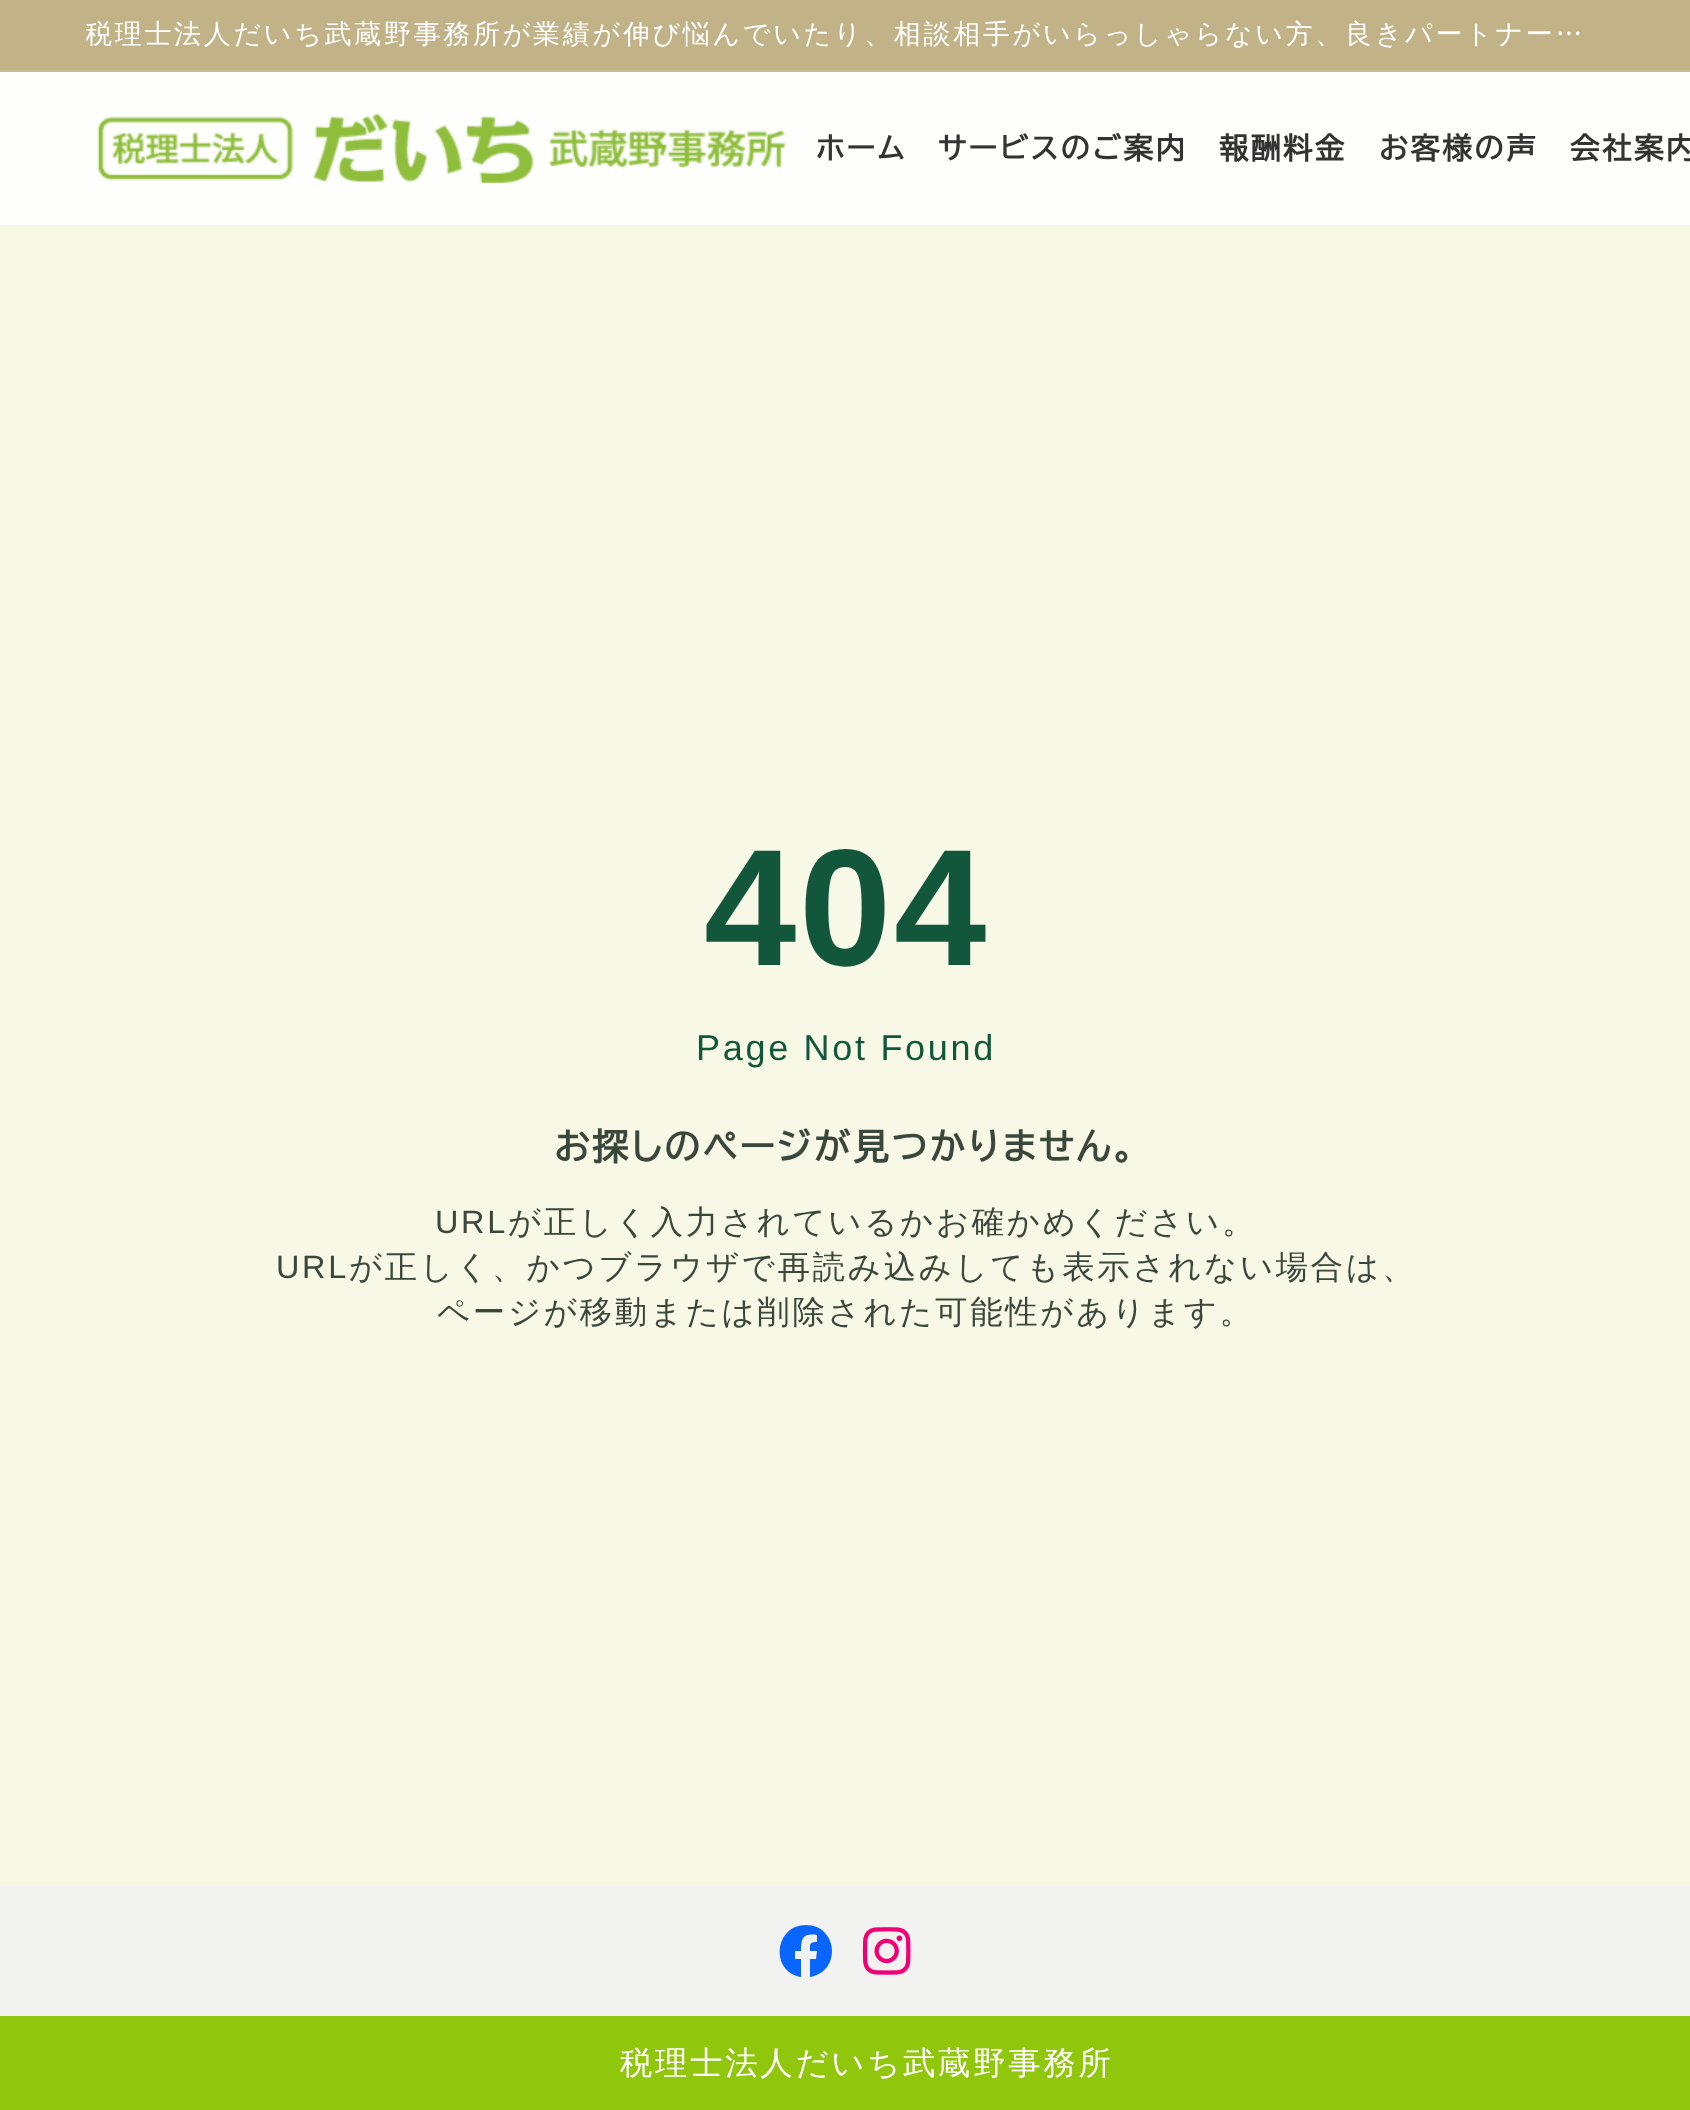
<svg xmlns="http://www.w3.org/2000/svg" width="1690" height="2110">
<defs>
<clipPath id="clip1"><rect x="86" width="1521" height="70"/></clipPath>
</defs>
<rect width="100%" height="100%" fill="#f7f8e6"/>
<rect width="1690" height="70" fill="#c1b387"/>
<rect y="70" width="1690" height="2" fill="#c7ba93"/>
<g clip-path="url(#clip1)">
<text x="85" y="43" style="font-family:WenQuanYi Zen Hei;font-size:27px;font-weight:500;letter-spacing:2.7px;fill:#fff">税理士法人だいち武蔵野事務所が業績が伸び悩んでいたり、相談相手がいらっしゃらない方、良きパートナー…</text>
</g>
<rect y="72" width="1690" height="153" fill="#fefefd"/>
<image x="97" y="113" width="689" height="71" href="media/1.png"/>
<text x="816" y="159" style="font-family:BIZ UDPGothic;font-size:29.25px;font-weight:bold;letter-spacing:2.7px;fill:#333">ホーム</text>
<text x="938" y="159" style="font-family:BIZ UDPGothic;font-size:29.25px;font-weight:bold;letter-spacing:2.7px;fill:#333">サービスのご案内</text>
<text x="1219" y="159" style="font-family:BIZ UDPGothic;font-size:29.25px;font-weight:bold;letter-spacing:2.7px;fill:#333">報酬料金</text>
<text x="1379" y="159" style="font-family:BIZ UDPGothic;font-size:29.25px;font-weight:bold;letter-spacing:2.7px;fill:#333">お客様の声</text>
<text x="1570" y="159" style="font-family:BIZ UDPGothic;font-size:29.25px;font-weight:bold;letter-spacing:2.7px;fill:#333">会社案内</text>
<text x="704" y="965" style="font-family:Liberation Sans;font-size:166px;font-weight:bold;letter-spacing:2.7px;fill:#12563b">404</text>
<text x="696" y="1060" style="font-family:Liberation Sans;font-size:36px;letter-spacing:2.7px;fill:#12563b">Page Not Found</text>
<text x="554" y="1160" style="font-family:BIZ UDPGothic;font-size:36px;font-weight:bold;letter-spacing:2.7px;fill:#3a473a">お探しのページが見つかりません。</text>
<text x="435" y="1233" style="font-family:Liberation Sans;font-size:32.4px;letter-spacing:2.7px;fill:#3a473a">URL</text>
<text x="508" y="1233" style="font-family:WenQuanYi Zen Hei;font-size:32.4px;font-weight:500;letter-spacing:2.7px;fill:#3a473a">が正しく入力されているかお確かめください。</text>
<text x="276" y="1278" style="font-family:Liberation Sans;font-size:32.4px;letter-spacing:2.7px;fill:#3a473a">URL</text>
<text x="349" y="1278" style="font-family:WenQuanYi Zen Hei;font-size:32.4px;font-weight:500;letter-spacing:2.7px;fill:#3a473a">が正しく、かつブラウザで再読み込みしても表示されない場合は、</text>
<text x="437" y="1323" style="font-family:WenQuanYi Zen Hei;font-size:32.4px;font-weight:500;letter-spacing:2.7px;fill:#3a473a">ページが移動または削除された可能性があります。</text>
<rect y="1886" width="1690" height="130" fill="#f2f2f0"/>
<path d="M806 1925c-32 0-36 47-5 52v-18h-6v-8h6c0-13 2-18 16-16v7c-8 0-7 2-7 9h7l-1 8h-6v18c32-5 28-52-4-52z" fill="#0866ff"/>
<image x="862" y="1927" width="49" height="48" href="media/2.png"/>
<rect y="2016" width="1690" height="94" fill="#90c60b"/>
<text x="620" y="2074" style="font-family:WenQuanYi Zen Hei;font-size:32.4px;font-weight:500;letter-spacing:2.7px;fill:#fff">税理士法人だいち武蔵野事務所</text>
</svg>
